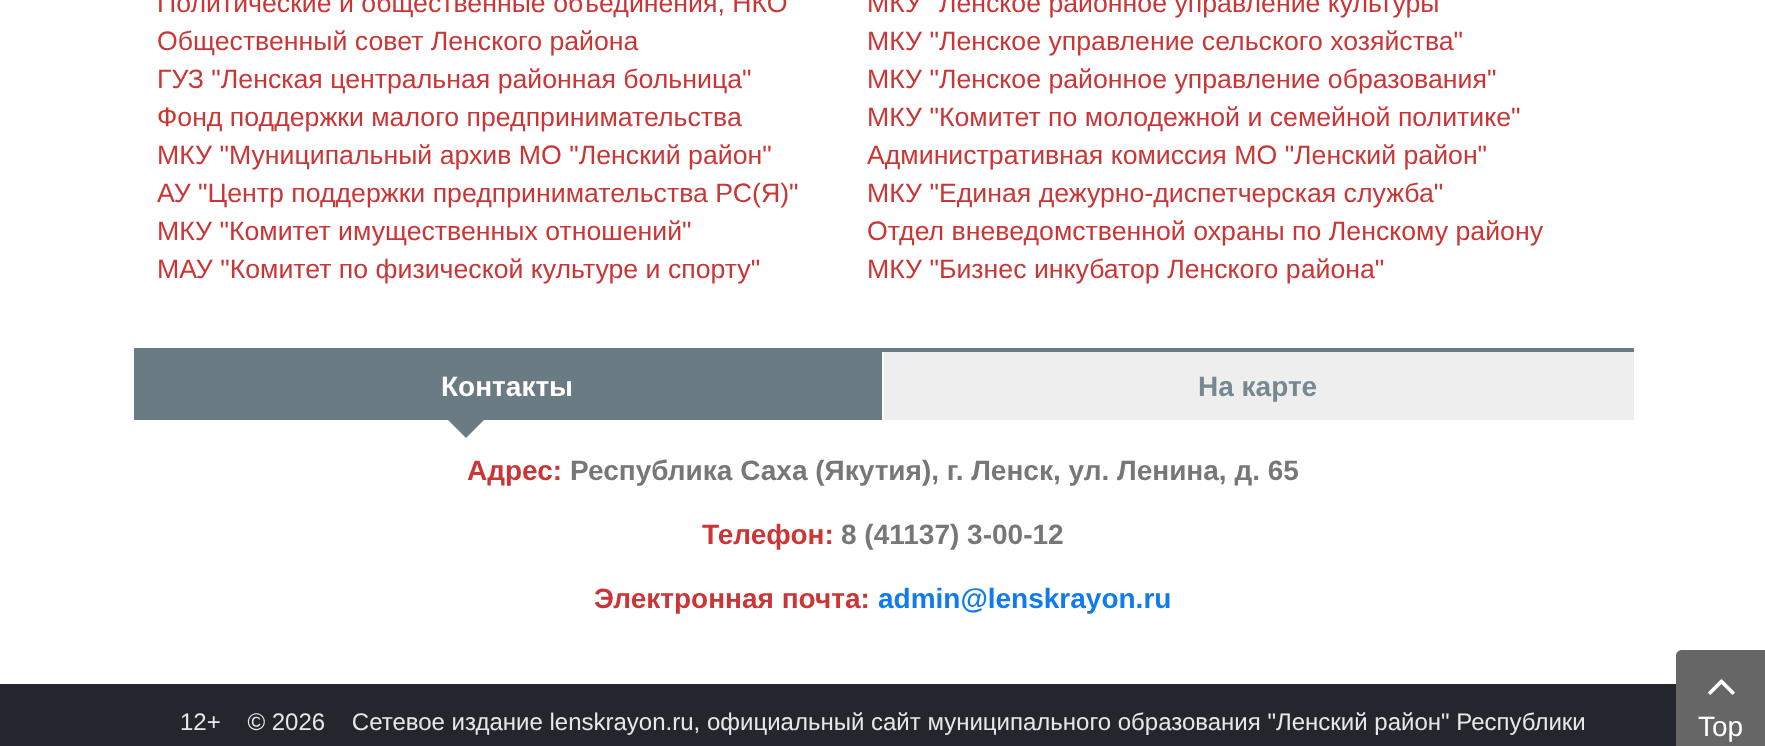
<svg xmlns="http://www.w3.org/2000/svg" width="1765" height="746">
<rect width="100%" height="100%" fill="#fff"/>
<text x="157" y="12" style="font-family:Liberation Sans;font-size:26.7px;fill:#cb3535">Политические и общественные объединения, НКО</text>
<text x="157" y="50" style="font-family:Liberation Sans;font-size:26.7px;fill:#cb3535">Общественный совет Ленского района</text>
<text x="157" y="88" style="font-family:Liberation Sans;font-size:26.7px;fill:#cb3535">ГУЗ "Ленская центральная районная больница"</text>
<text x="157" y="126" style="font-family:Liberation Sans;font-size:26.7px;fill:#cb3535">Фонд поддержки малого предпринимательства</text>
<text x="157" y="164" style="font-family:Liberation Sans;font-size:26.7px;fill:#cb3535">МКУ "Муниципальный архив МО "Ленский район"</text>
<text x="157" y="202" style="font-family:Liberation Sans;font-size:26.7px;fill:#cb3535">АУ "Центр поддержки предпринимательства РС(Я)"</text>
<text x="157" y="240" style="font-family:Liberation Sans;font-size:26.7px;fill:#cb3535">МКУ "Комитет имущественных отношений"</text>
<text x="157" y="278" style="font-family:Liberation Sans;font-size:26.7px;fill:#cb3535">МАУ "Комитет по физической культуре и спорту"</text>
<text x="867" y="12" style="font-family:Liberation Sans;font-size:26.7px;fill:#cb3535">МКУ "Ленское районное управление культуры</text>
<text x="867" y="50" style="font-family:Liberation Sans;font-size:26.7px;fill:#cb3535">МКУ "Ленское управление сельского хозяйства"</text>
<text x="867" y="88" style="font-family:Liberation Sans;font-size:26.7px;fill:#cb3535">МКУ "Ленское районное управление образования"</text>
<text x="867" y="126" style="font-family:Liberation Sans;font-size:26.7px;fill:#cb3535">МКУ "Комитет по молодежной и семейной политике"</text>
<text x="867" y="164" style="font-family:Liberation Sans;font-size:26.7px;fill:#cb3535">Административная комиссия МО "Ленский район"</text>
<text x="867" y="202" style="font-family:Liberation Sans;font-size:26.7px;fill:#cb3535">МКУ "Единая дежурно-диспетчерская служба"</text>
<text x="867" y="240" style="font-family:Liberation Sans;font-size:26.7px;fill:#cb3535">Отдел вневедомственной охраны по Ленскому району</text>
<text x="867" y="278" style="font-family:Liberation Sans;font-size:26.7px;fill:#cb3535">МКУ "Бизнес инкубатор Ленского района"</text>
<rect x="134" y="348" width="1500" height="4" fill="#6b7b84"/>
<rect x="134" y="352" width="748" height="68" fill="#6b7b84"/>
<text x="441" y="396" style="font-family:Liberation Sans;font-size:28px;font-weight:bold;fill:#fff">Контакты</text>
<path d="M448 420h36l-18 18z" fill="#6b7b84"/>
<rect x="884" y="352" width="750" height="68" fill="#eee"/>
<text x="1198" y="396" style="font-family:Liberation Sans;font-size:28px;font-weight:bold;fill:#778891">На карте</text>
<text x="467" y="480" style="font-family:Liberation Sans;font-size:28px;font-weight:bold;fill:#cb3535">Адрес:</text>
<text x="570" y="480" style="font-family:Liberation Sans;font-size:28px;font-weight:bold;fill:#777">Республика Саха (Якутия), г. Ленск, ул. Ленина, д. 65</text>
<text x="702" y="544" style="font-family:Liberation Sans;font-size:28px;font-weight:bold;fill:#cb3535">Телефон:</text>
<text x="841" y="544" style="font-family:Liberation Sans;font-size:28px;font-weight:bold;fill:#777">8 (41137) 3-00-12</text>
<text x="594" y="608" style="font-family:Liberation Sans;font-size:28px;font-weight:bold;fill:#cb3535">Электронная почта:</text>
<text x="878" y="608" style="font-family:Liberation Sans;font-size:28px;font-weight:bold;fill:#107bea">admin@lenskrayon.ru</text>
<rect y="684" width="1676" height="62" fill="#23262d"/>
<text x="180" y="730" style="font-family:Liberation Sans;font-size:24px;fill:#e7e7e7" xml:space="preserve">12+    © 2026    Сетевое издание lenskrayon.ru, официальный сайт муниципального образования "Ленский район" Республики</text>
<path d="M1682 650h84v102h-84c-3.5 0-6-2.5-6-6v-90c0-3.5 2.5-6 6-6z" fill="#666"/>
<image x="1708" y="679" width="27" height="16" href="media/1.png"/>
<text x="1698" y="736" style="font-family:Liberation Sans;font-size:28px;fill:#fff">Top</text>
</svg>
